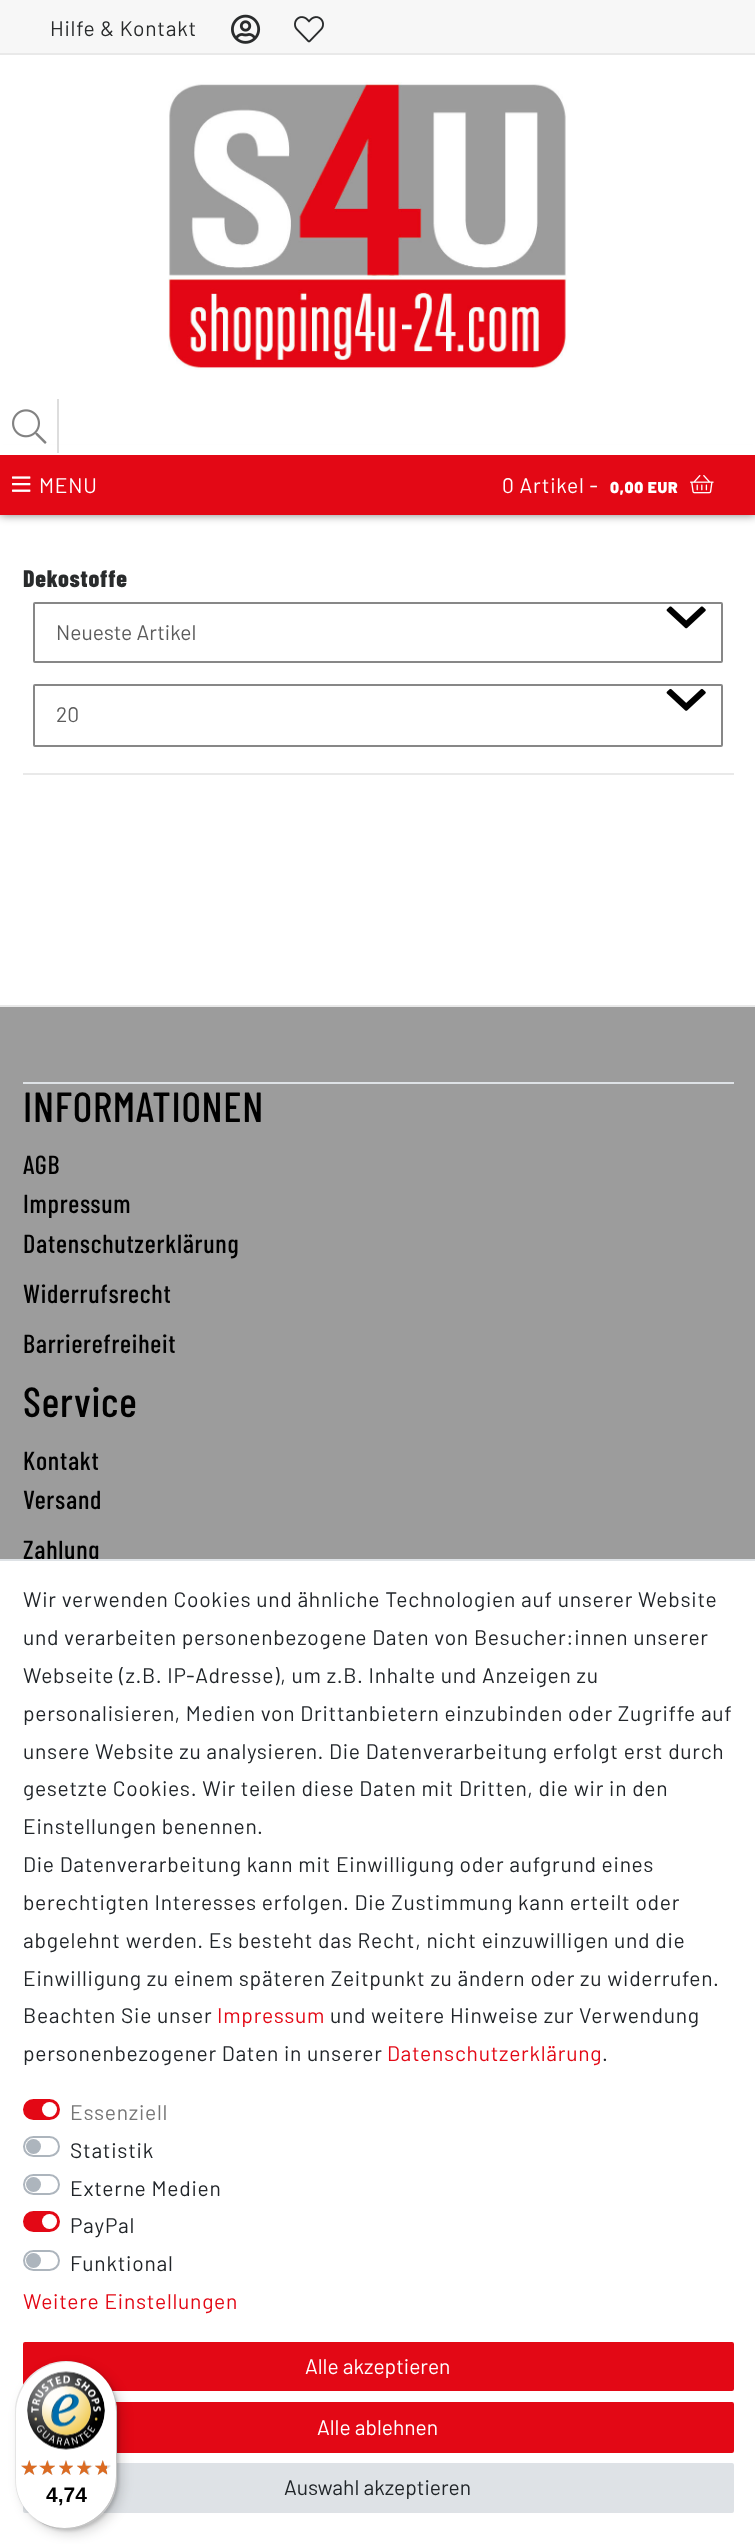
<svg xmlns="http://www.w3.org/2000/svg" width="755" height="2544">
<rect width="100%" height="100%" fill="#fff"/>
<rect width="755" height="53" fill="#f7f7f7"/>
<rect y="53" width="755" height="2" fill="#e9e9e9"/>
<text x="50" y="36" style="font-family:Barlow;font-size:21px;letter-spacing:0.75px;fill:#292b2c">Hilfe &amp; Kontakt</text>
<image x="231" y="14" width="30" height="30" href="media/1.png"/>
<image x="294" y="16" width="30" height="27" href="media/2.png"/>
<rect y="455" width="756" height="60" fill="#00000080" filter="blur(5px)"/>
<rect y="445" width="755" height="10" fill="#fff"/>
<image x="168" y="82" width="399" height="288" href="media/3.png"/>
<rect x="57" y="399" width="2" height="54" fill="#ddd"/>
<image x="12" y="409" width="35" height="35" href="media/4.png"/>
<rect y="455" width="755" height="60" fill="#e30815"/>
<image x="12" y="476" width="19" height="16" href="media/5.png"/>
<text x="39" y="493" style="font-family:Barlow;font-size:21px;letter-spacing:0.75px;fill:#fff">MENU</text>
<text x="502" y="493" style="font-family:Barlow;font-size:21px;letter-spacing:0.75px;fill:#fff">0 Artikel -</text>
<text x="610" y="493" style="font-family:Barlow;font-size:15.75px;font-weight:900;letter-spacing:0.75px;fill:#fff">0,00 EUR</text>
<image x="690" y="475" width="24" height="19" href="media/6.png"/>
<rect x="23" y="773" width="711" height="2" fill="#e9e9e9"/>
<text x="23" y="587" style="font-family:Barlow Condensed;font-size:24px;font-weight:800;letter-spacing:0.75px;fill:#292b2c">Dekostoffe</text>
<image x="666" y="606" width="40" height="23" href="media/7.png"/>
<rect x="34" y="603" width="688" height="59" rx="1" fill="none" stroke="#878787" stroke-width="2"/>
<text x="56" y="640" style="font-family:Barlow;font-size:21px;fill:#5c5c5c">Neueste Artikel</text>
<image x="666" y="688" width="40" height="23" href="media/8.png"/>
<rect x="34" y="685" width="688" height="61" rx="1" fill="none" stroke="#878787" stroke-width="2"/>
<text x="56" y="722" style="font-family:Barlow;font-size:21px;fill:#5c5c5c">20</text>
<rect y="1007" width="755" height="552" fill="#9c9c9c"/>
<rect y="1005" width="755" height="2" fill="#e9e9e9"/>
<rect x="23" y="1082" width="711" height="2" fill="#dee2e6"/>
<text x="23" y="1122" style="font-family:Barlow Condensed;font-size:42px;font-weight:500;letter-spacing:0.75px;fill:#000">INFORMATIONEN</text>
<text x="23" y="1174" style="font-family:Barlow Condensed;font-size:26.25px;font-weight:500;letter-spacing:0.75px;fill:#000">AGB</text>
<text x="23" y="1213" style="font-family:Barlow Condensed;font-size:26.25px;font-weight:500;letter-spacing:0.75px;fill:#000">Impressum</text>
<text x="23" y="1253" style="font-family:Barlow Condensed;font-size:26.25px;font-weight:500;letter-spacing:0.75px;fill:#000">Datenschutzerklärung</text>
<text x="23" y="1303" style="font-family:Barlow Condensed;font-size:26.25px;font-weight:500;letter-spacing:0.75px;fill:#000">Widerrufsrecht</text>
<text x="23" y="1353" style="font-family:Barlow Condensed;font-size:26.25px;font-weight:500;letter-spacing:0.75px;fill:#000">Barrierefreiheit</text>
<text x="23" y="1417" style="font-family:Barlow Condensed;font-size:42px;font-weight:500;letter-spacing:0.75px;fill:#000">Service</text>
<text x="23" y="1470" style="font-family:Barlow Condensed;font-size:26.25px;font-weight:500;letter-spacing:0.75px;fill:#000">Kontakt</text>
<text x="23" y="1509" style="font-family:Barlow Condensed;font-size:26.25px;font-weight:500;letter-spacing:0.75px;fill:#000">Versand</text>
<text x="23" y="1559" style="font-family:Barlow Condensed;font-size:26.25px;font-weight:500;letter-spacing:0.75px;fill:#000">Zahlung</text>
<rect x="91" y="1561" width="7" height="4" fill="#fff"/>
<rect y="1559" width="755" height="2" fill="#dee2e6"/>
<text x="23" y="1607" style="font-family:Barlow;font-size:21px;letter-spacing:0.75px;fill:#212529">Wir verwenden Cookies und ähnliche Technologien auf unserer Website</text>
<text x="23" y="1645" style="font-family:Barlow;font-size:21px;letter-spacing:0.75px;fill:#212529">und verarbeiten personenbezogene Daten von Besucher:innen unserer</text>
<text x="23" y="1683" style="font-family:Barlow;font-size:21px;letter-spacing:0.75px;fill:#212529">Webseite (z.B. IP-Adresse), um z.B. Inhalte und Anzeigen zu</text>
<text x="23" y="1721" style="font-family:Barlow;font-size:21px;letter-spacing:0.75px;fill:#212529">personalisieren, Medien von Drittanbietern einzubinden oder Zugriffe auf</text>
<text x="23" y="1759" style="font-family:Barlow;font-size:21px;letter-spacing:0.75px;fill:#212529">unsere Website zu analysieren. Die Datenverarbeitung erfolgt erst durch</text>
<text x="23" y="1796" style="font-family:Barlow;font-size:21px;letter-spacing:0.75px;fill:#212529">gesetzte Cookies. Wir teilen diese Daten mit Dritten, die wir in den</text>
<text x="23" y="1834" style="font-family:Barlow;font-size:21px;letter-spacing:0.75px;fill:#212529">Einstellungen benennen.</text>
<text x="23" y="1872" style="font-family:Barlow;font-size:21px;letter-spacing:0.75px;fill:#212529">Die Datenverarbeitung kann mit Einwilligung oder aufgrund eines</text>
<text x="23" y="1910" style="font-family:Barlow;font-size:21px;letter-spacing:0.75px;fill:#212529">berechtigten Interesses erfolgen. Die Zustimmung kann erteilt oder</text>
<text x="23" y="1948" style="font-family:Barlow;font-size:21px;letter-spacing:0.75px;fill:#212529">abgelehnt werden. Es besteht das Recht, nicht einzuwilligen und die</text>
<text x="23" y="1986" style="font-family:Barlow;font-size:21px;letter-spacing:0.75px;fill:#212529">Einwilligung zu einem späteren Zeitpunkt zu ändern oder zu widerrufen.</text>
<text x="23" y="2023" style="font-family:Barlow;font-size:21px;letter-spacing:0.75px;fill:#212529">Beachten Sie unser</text>
<text x="217" y="2023" style="font-family:Barlow;font-size:21px;letter-spacing:0.75px;fill:#e30815">Impressum</text>
<text x="330" y="2023" style="font-family:Barlow;font-size:21px;letter-spacing:0.75px;fill:#212529">und weitere Hinweise zur Verwendung</text>
<text x="23" y="2061" style="font-family:Barlow;font-size:21px;letter-spacing:0.75px;fill:#212529">personenbezogener Daten in unserer</text>
<text x="387" y="2061" style="font-family:Barlow;font-size:21px;letter-spacing:0.75px;fill:#e30815">Datenschutzerklärung</text>
<text x="602" y="2061" style="font-family:Barlow;font-size:21px;letter-spacing:0.75px;fill:#212529">.</text>
<rect x="24" y="2100" width="35" height="19" rx="9.5" fill="#e30815" stroke="#e30815" stroke-width="2"/>
<circle cx="49.5" cy="2109.5" r="7.5" fill="#fff"/>
<text x="70" y="2120" style="font-family:Barlow;font-size:21px;letter-spacing:0.75px;fill:#767676">Essenziell</text>
<rect x="24" y="2137" width="35" height="19" rx="9.5" fill="none" stroke="#adb5bd" stroke-width="2"/>
<circle cx="33.5" cy="2146.5" r="7.5" fill="#adb5bd"/>
<text x="70" y="2158" style="font-family:Barlow;font-size:21px;letter-spacing:0.75px;fill:#212529">Statistik</text>
<rect x="24" y="2175" width="35" height="19" rx="9.5" fill="none" stroke="#adb5bd" stroke-width="2"/>
<circle cx="33.5" cy="2184.5" r="7.5" fill="#adb5bd"/>
<text x="70" y="2196" style="font-family:Barlow;font-size:21px;letter-spacing:0.75px;fill:#212529">Externe Medien</text>
<rect x="24" y="2212" width="35" height="19" rx="9.5" fill="#e30815" stroke="#e30815" stroke-width="2"/>
<circle cx="49.5" cy="2221.5" r="7.5" fill="#fff"/>
<text x="70" y="2233" style="font-family:Barlow;font-size:21px;letter-spacing:0.75px;fill:#212529">PayPal</text>
<rect x="24" y="2251" width="35" height="19" rx="9.5" fill="none" stroke="#adb5bd" stroke-width="2"/>
<circle cx="33.5" cy="2260.5" r="7.5" fill="#adb5bd"/>
<text x="70" y="2271" style="font-family:Barlow;font-size:21px;letter-spacing:0.75px;fill:#212529">Funktional</text>
<text x="23" y="2309" style="font-family:Barlow;font-size:21px;letter-spacing:0.75px;fill:#e30815">Weitere Einstellungen</text>
<rect x="24" y="2343" width="709" height="47" rx="1" fill="#e30815" stroke="#e30815" stroke-width="2"/>
<text x="305" y="2374" style="font-family:Barlow;font-size:21px;fill:#fff">Alle akzeptieren</text>
<rect x="24" y="2403" width="709" height="49" rx="1" fill="#e30815" stroke="#e30815" stroke-width="2"/>
<text x="317" y="2435" style="font-family:Barlow;font-size:21px;fill:#fff">Alle ablehnen</text>
<rect x="24" y="2464" width="709" height="48" rx="1" fill="#dee2e6" stroke="#dee2e6" stroke-width="2"/>
<text x="284" y="2495" style="font-family:Barlow;font-size:21px;fill:#212529">Auswahl akzeptieren</text>
<rect x="20" y="2366" width="102" height="168" rx="51" fill="#00000026" filter="blur(6px)"/>
<rect x="17" y="2363" width="102" height="168" rx="51" fill="#00000026" filter="blur(1.5px)"/>
<rect x="15" y="2361" width="102" height="168" rx="51" fill="#fff"/>
<path d="M68 2362c10 0 19 3 27 8c-8-6-18-9-29-9c-28 0-51 23-51 51v66c0 11 3 21 9 29c-5-8-8-17-8-27v-66c0-29 23-52 52-52z" fill="#0000001a"/>
<path d="M37 2520c8 6 18 9 29 9c28 0 51-23 51-51v-66c0-11-3-21-9-29c5 8 8 17 8 27v66c0 29-23 52-52 52c-10 0-19-3-27-8z" fill="#00000033"/>
<path d="M27 2511c10 11 24 18 39 18c28 0 51-23 51-51v-66c0-15-7-29-18-39c11 10 17 23 17 38v66c0 28-23 51-51 51c-15 0-28-6-38-17z" fill="#32323233"/>
<path d="M27 2511c10 11 24 18 39 18c28 0 51-23 51-51v-66c0-15-7-29-18-39c11 10 17 23 17 38v66c0 28-23 51-51 51c-15 0-28-6-38-17z" fill="#ffffff4d"/>
<image x="27" y="2371" width="78" height="79" href="media/9.png"/>
<image x="21" y="2460" width="16" height="15" href="media/10.png"/>
<image x="41" y="2460" width="14" height="15" href="media/11.png"/>
<image x="59" y="2460" width="14" height="15" href="media/12.png"/>
<image x="77" y="2460" width="16" height="15" href="media/13.png"/>
<image x="95" y="2460" width="16" height="15" href="media/14.png"/>
<image x="21" y="2460" width="16" height="15" href="media/15.png"/>
<image x="39" y="2460" width="16" height="15" href="media/16.png"/>
<image x="59" y="2460" width="14" height="15" href="media/17.png"/>
<image x="77" y="2460" width="14" height="15" href="media/18.png"/>
<image x="95" y="2460" width="12" height="15" href="media/19.png"/>
<text x="46" y="2502" style="font-family:Liberation Sans;font-size:21px;font-weight:bold;fill:#000">4,74</text>
</svg>
